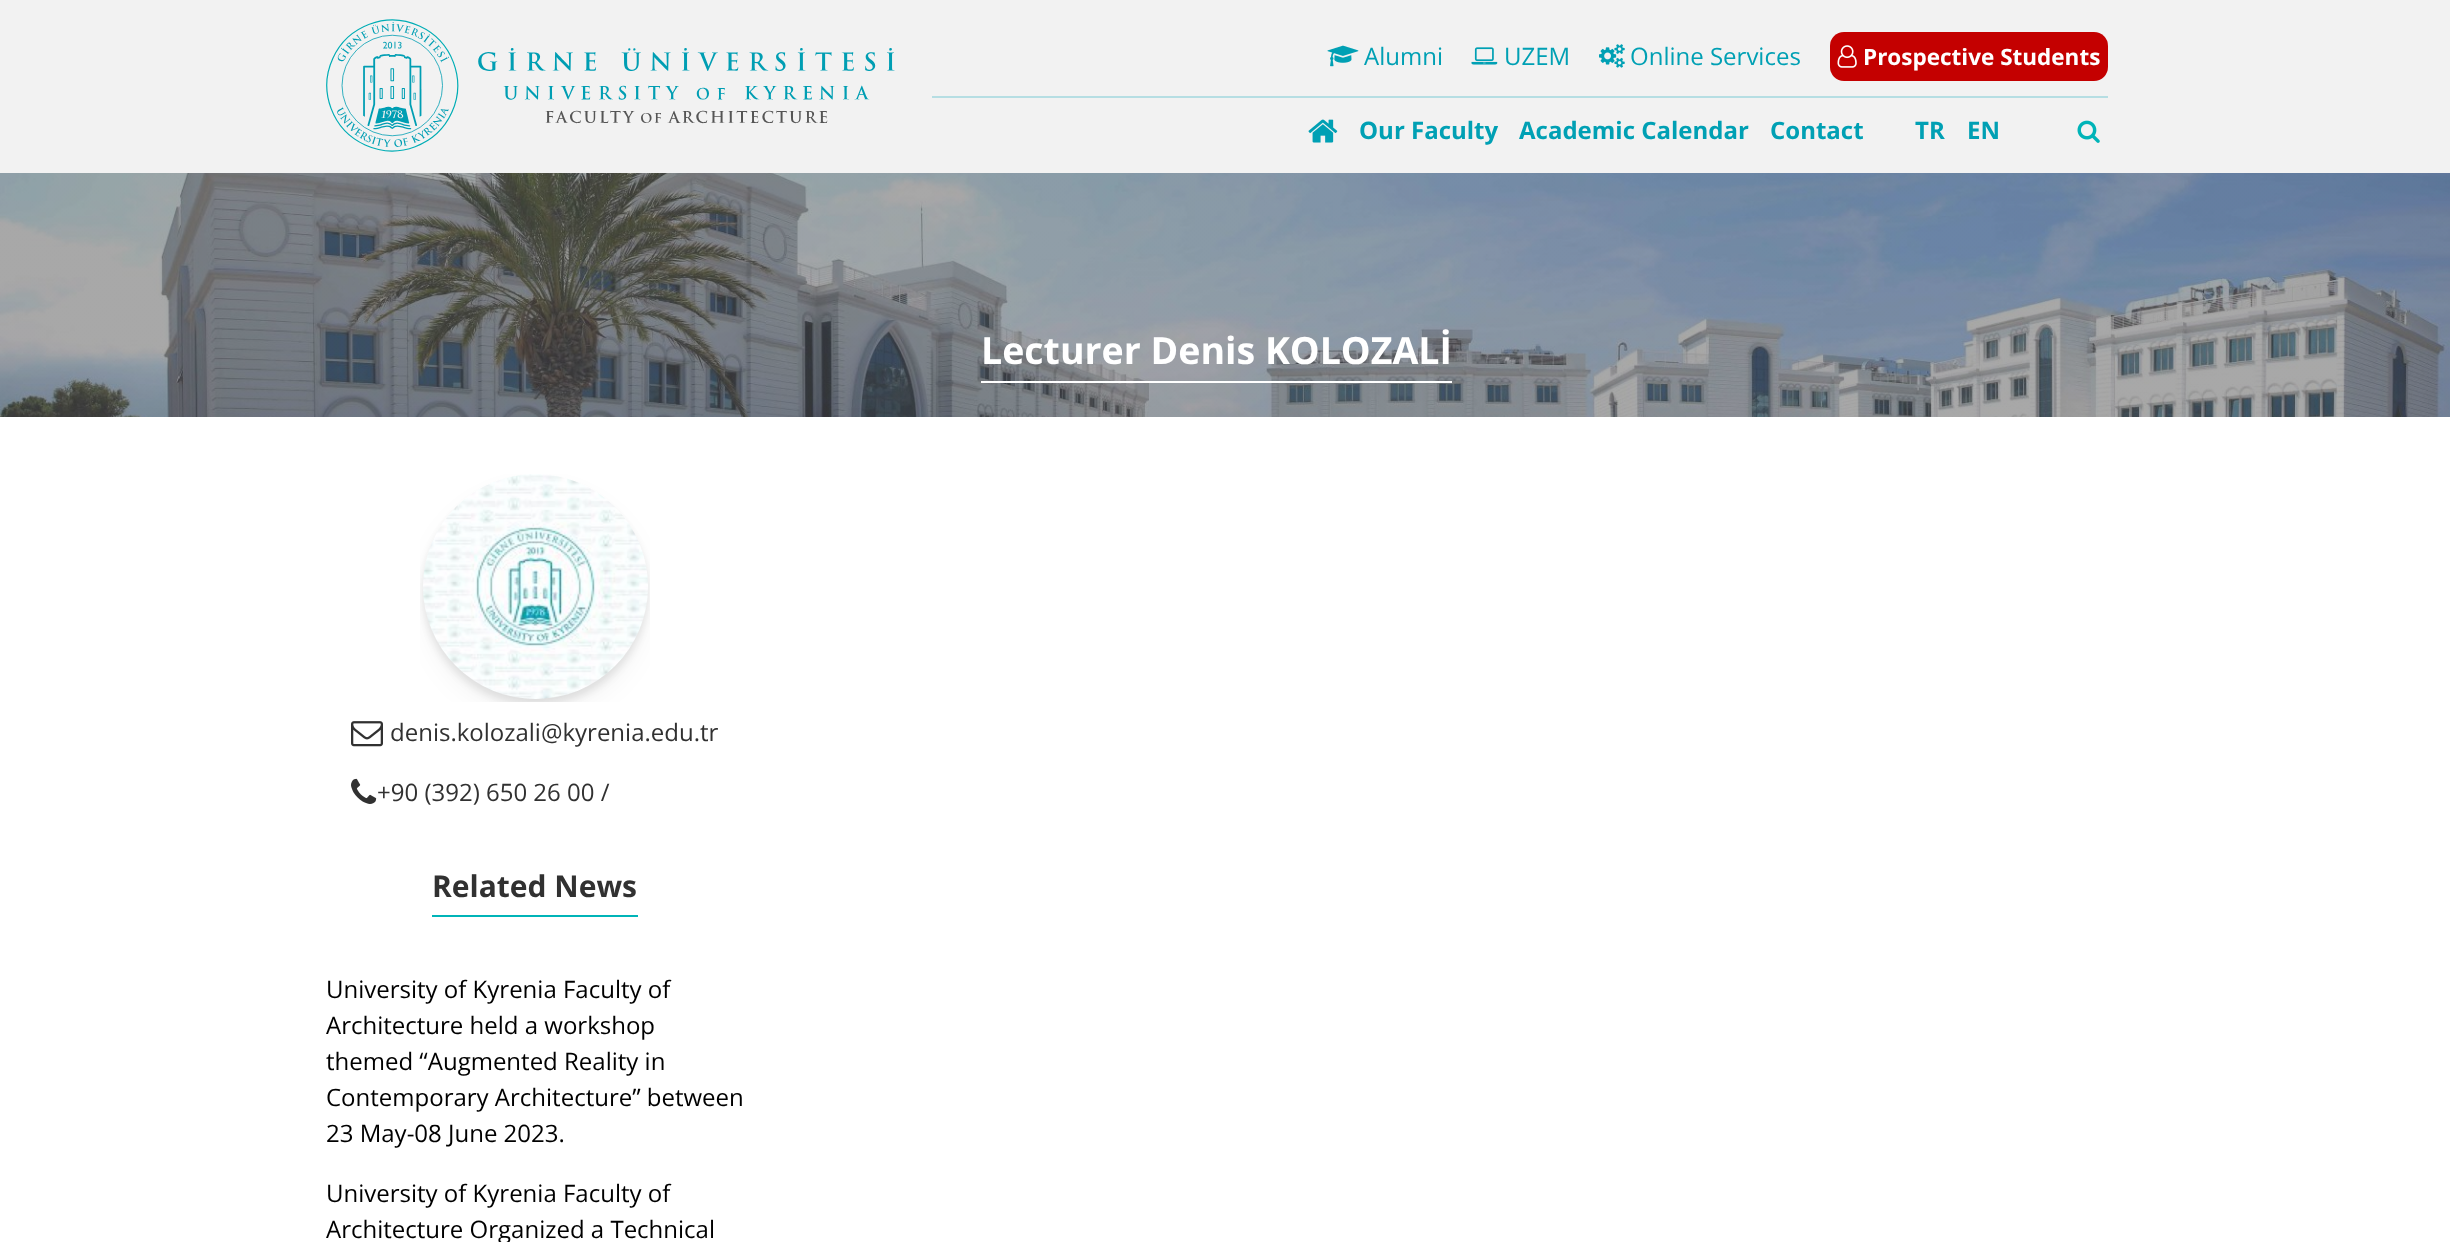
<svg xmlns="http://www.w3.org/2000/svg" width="2450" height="1242">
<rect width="100%" height="100%" fill="#fff"/>
<rect width="2450" height="173" fill="#f2f2f2"/>
<image x="326" y="19" width="569" height="133" href="media/1.png"/>
<image x="1327" y="45" width="32" height="22" href="media/2.png"/>
<text x="1364" y="65" style="font-family:Open Sans;font-size:24px;fill:#00a0b4">Alumni</text>
<image x="1471" y="47" width="27" height="18" href="media/3.png"/>
<text x="1504" y="65" style="font-family:Open Sans;font-size:24px;fill:#00a0b4">UZEM</text>
<image x="1599" y="44" width="26" height="24" href="media/4.png"/>
<text x="1630" y="65" style="font-family:Open Sans;font-size:24px;fill:#00a0b4">Online Services</text>
<rect x="1830" y="32" width="278" height="49" rx="14" fill="#c40000"/>
<image x="1837" y="45" width="20" height="23" href="media/5.png"/>
<text x="1863" y="65" style="font-family:Open Sans;font-size:22.5px;font-weight:bold;fill:#fff">Prospective Students</text>
<rect x="932" y="96" width="1176" height="2" fill="#b6dee3"/>
<image x="1308" y="119" width="30" height="24" href="media/6.png"/>
<text x="1359" y="139" style="font-family:Open Sans;font-size:24px;font-weight:bold;fill:#00a0b4">Our Faculty</text>
<text x="1519" y="139" style="font-family:Open Sans;font-size:24px;font-weight:bold;fill:#00a0b4">Academic Calendar</text>
<text x="1770" y="139" style="font-family:Open Sans;font-size:24px;font-weight:bold;fill:#00a0b4">Contact</text>
<text x="1915" y="139" style="font-family:Open Sans;font-size:24px;font-weight:bold;fill:#00a0b4">TR</text>
<text x="1967" y="139" style="font-family:Open Sans;font-size:24px;font-weight:bold;fill:#00a0b4">EN</text>
<image x="2077" y="120" width="23" height="23" href="media/7.png"/>
<image x="0" y="173" width="2450" height="244" href="media/8.png"/>
<text x="981" y="364" style="font-family:Open Sans;font-size:37.5px;font-weight:bold;fill:#fff">Lecturer Denis KOLOZALİ</text>
<rect x="981" y="381" width="471" height="2" fill="#fff"/>
<image x="420" y="474" width="230" height="228" href="media/9.png"/>
<image x="351" y="721" width="32" height="26" href="media/10.png"/>
<text x="390" y="741" style="font-family:Open Sans;font-size:24px;fill:#313131">denis.kolozali@kyrenia.edu.tr</text>
<image x="351" y="778" width="26" height="26" href="media/11.png"/>
<text x="377" y="801" style="font-family:Open Sans;font-size:24px;fill:#313131">+90 (392) 650 26 00 /</text>
<rect x="432" y="915" width="206" height="2" fill="#00b4b8"/>
<text x="432" y="897" style="font-family:Open Sans;font-size:30px;font-weight:bold;fill:#313131">Related News</text>
<text x="326" y="998" style="font-family:Open Sans;font-size:24px;fill:#000">University of Kyrenia Faculty of</text>
<text x="326" y="1034" style="font-family:Open Sans;font-size:24px;fill:#000">Architecture held a workshop</text>
<text x="326" y="1070" style="font-family:Open Sans;font-size:24px;fill:#000">themed “Augmented Reality in</text>
<text x="326" y="1106" style="font-family:Open Sans;font-size:24px;fill:#000">Contemporary Architecture” between</text>
<text x="326" y="1142" style="font-family:Open Sans;font-size:24px;fill:#000">23 May-08 June 2023.</text>
<text x="326" y="1202" style="font-family:Open Sans;font-size:24px;fill:#000">University of Kyrenia Faculty of</text>
<text x="326" y="1238" style="font-family:Open Sans;font-size:24px;fill:#000">Architecture Organized a Technical</text>
</svg>
